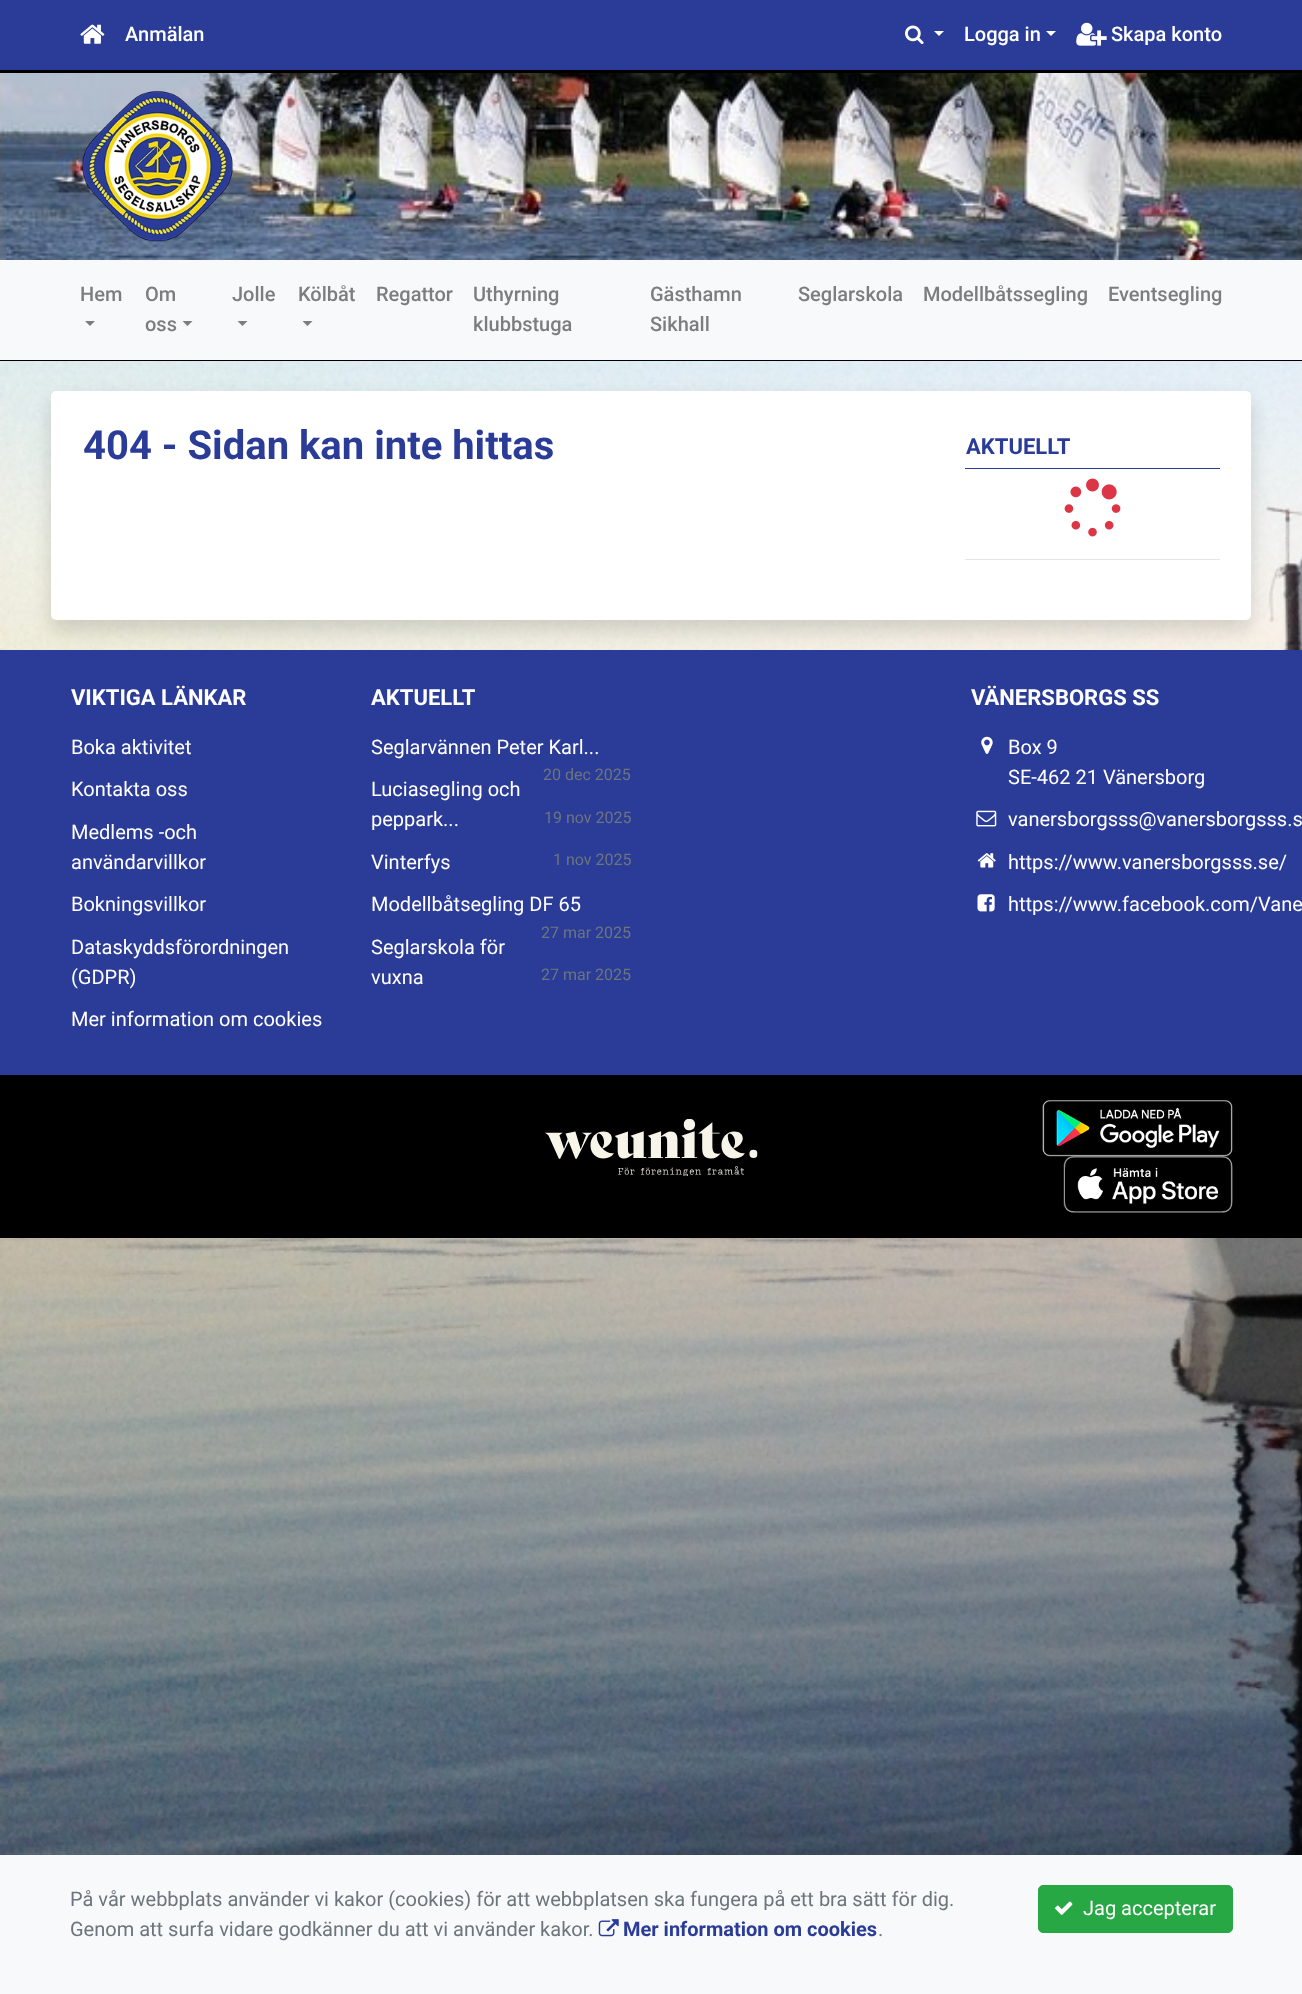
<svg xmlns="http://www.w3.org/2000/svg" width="1302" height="1994">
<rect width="100%" height="100%" fill="#fff"/>
<image x="0" y="361" width="1302" height="1494" href="media/1.png"/>
<rect width="1302" height="70" fill="#2b3c98"/>
<rect y="70" width="1302" height="3" fill="#000"/>
<image x="80" y="24" width="25" height="20" href="media/2.png"/>
<text x="125" y="41" style="font-family:Roboto;font-size:20px;font-weight:500;fill:#fff">Anmälan</text>
<image x="905" y="25" width="19" height="20" href="media/3.png"/>
<path d="M934 31h10l-5 5z" fill="#fff"/>
<text x="964" y="41" style="font-family:Roboto;font-size:20px;font-weight:500;fill:#fff">Logga in</text>
<path d="M1046 31h10l-5 5z" fill="#fff"/>
<image x="1076" y="22" width="31" height="24" href="media/4.png"/>
<text x="1111" y="41" style="font-family:Roboto;font-size:20px;font-weight:500;fill:#fff">Skapa konto</text>
<image x="0" y="73" width="1302" height="187" href="media/5.png"/>
<image x="82" y="91" width="151" height="151" href="media/6.png"/>
<rect y="260" width="1302" height="100" fill="#f8f9fa"/>
<text x="80" y="301" style="font-family:Roboto;font-size:20px;font-weight:500;fill:#7c7d7d">Hem</text>
<path d="M85 321h10l-5 5z" fill="#7c7d7d"/>
<text x="145" y="301" style="font-family:Roboto;font-size:20px;font-weight:500;fill:#7c7d7d">Om</text>
<text x="145" y="331" style="font-family:Roboto;font-size:20px;font-weight:500;fill:#7c7d7d">oss</text>
<path d="M182.5 321h10l-5 5z" fill="#7c7d7d"/>
<text x="232" y="301" style="font-family:Roboto;font-size:20px;font-weight:500;fill:#7c7d7d">Jolle</text>
<path d="M237.5 321h10l-5 5z" fill="#7c7d7d"/>
<text x="298" y="301" style="font-family:Roboto;font-size:20px;font-weight:500;fill:#7c7d7d">Kölbåt</text>
<path d="M302.5 321h10l-5 5z" fill="#7c7d7d"/>
<text x="376" y="301" style="font-family:Roboto;font-size:20px;font-weight:500;fill:#7c7d7d">Regattor</text>
<text x="473" y="301" style="font-family:Roboto;font-size:20px;font-weight:500;fill:#7c7d7d">Uthyrning</text>
<text x="473" y="331" style="font-family:Roboto;font-size:20px;font-weight:500;fill:#7c7d7d">klubbstuga</text>
<text x="650" y="301" style="font-family:Roboto;font-size:20px;font-weight:500;fill:#7c7d7d">Gästhamn</text>
<text x="650" y="331" style="font-family:Roboto;font-size:20px;font-weight:500;fill:#7c7d7d">Sikhall</text>
<text x="798" y="301" style="font-family:Roboto;font-size:20px;font-weight:500;fill:#7c7d7d">Seglarskola</text>
<text x="923" y="301" style="font-family:Roboto;font-size:20px;font-weight:500;fill:#7c7d7d">Modellbåtssegling</text>
<text x="1108" y="301" style="font-family:Roboto;font-size:20px;font-weight:500;fill:#7c7d7d">Eventsegling</text>
<rect y="360" width="1302" height="1" fill="#000"/>
<rect x="51" y="401" width="1200" height="229" rx="5" fill="#00000026" filter="blur(10px)"/>
<rect x="51" y="391" width="1200" height="229" rx="5" fill="#fff"/>
<text x="83" y="459" style="font-family:Roboto;font-size:40px;font-weight:bold;fill:#2b3c98">404 - Sidan kan inte hittas</text>
<rect x="965" y="468" width="255" height="1" fill="#2b3c98"/>
<text x="966" y="454" style="font-family:Roboto;font-size:22px;font-weight:bold;fill:#2b3c98">AKTUELLT</text>
<image x="1064" y="478" width="57" height="59" href="media/7.png"/>
<rect x="965" y="559" width="255" height="1" fill="#e6e6e6"/>
<rect y="650" width="1302" height="425" fill="#2b3c98"/>
<text x="71" y="705" style="font-family:Roboto;font-size:22px;font-weight:bold;fill:#fff">VIKTIGA LÄNKAR</text>
<text x="71" y="754" style="font-family:Roboto;font-size:20px;fill:#fff">Boka aktivitet</text>
<text x="71" y="796" style="font-family:Roboto;font-size:20px;fill:#fff">Kontakta oss</text>
<text x="71" y="839" style="font-family:Roboto;font-size:20px;fill:#fff">Medlems -och</text>
<text x="71" y="869" style="font-family:Roboto;font-size:20px;fill:#fff">användarvillkor</text>
<text x="71" y="911" style="font-family:Roboto;font-size:20px;fill:#fff">Bokningsvillkor</text>
<text x="71" y="954" style="font-family:Roboto;font-size:20px;fill:#fff">Dataskyddsförordningen</text>
<text x="71" y="984" style="font-family:Roboto;font-size:20px;fill:#fff">(GDPR)</text>
<text x="71" y="1026" style="font-family:Roboto;font-size:20px;fill:#fff">Mer information om cookies</text>
<text x="371" y="705" style="font-family:Roboto;font-size:22px;font-weight:bold;fill:#fff">AKTUELLT</text>
<text x="371" y="754" style="font-family:Roboto;font-size:20px;fill:#fff">Seglarvännen Peter Karl...</text>
<text x="543" y="780" style="font-family:Roboto;font-size:16px;fill:#6c757d">20 dec 2025</text>
<text x="371" y="796" style="font-family:Roboto;font-size:20px;fill:#fff">Luciasegling och</text>
<text x="371" y="826" style="font-family:Roboto;font-size:20px;fill:#fff">peppark...</text>
<text x="544" y="823" style="font-family:Roboto;font-size:16px;fill:#6c757d">19 nov 2025</text>
<text x="371" y="869" style="font-family:Roboto;font-size:20px;fill:#fff">Vinterfys</text>
<text x="553" y="865" style="font-family:Roboto;font-size:16px;fill:#6c757d">1 nov 2025</text>
<text x="371" y="911" style="font-family:Roboto;font-size:20px;fill:#fff">Modellbåtsegling DF 65</text>
<text x="541" y="938" style="font-family:Roboto;font-size:16px;fill:#6c757d">27 mar 2025</text>
<text x="371" y="954" style="font-family:Roboto;font-size:20px;fill:#fff">Seglarskola för</text>
<text x="371" y="984" style="font-family:Roboto;font-size:20px;fill:#fff">vuxna</text>
<text x="541" y="980" style="font-family:Roboto;font-size:16px;fill:#6c757d">27 mar 2025</text>
<text x="971" y="705" style="font-family:Roboto;font-size:22px;font-weight:bold;fill:#fff">VÄNERSBORGS SS</text>
<image x="981" y="736" width="12" height="18" href="media/8.png"/>
<text x="1008" y="754" style="font-family:Roboto;font-size:20px;fill:#fff">Box 9</text>
<text x="1008" y="784" style="font-family:Roboto;font-size:20px;fill:#fff">SE-462 21 Vänersborg</text>
<image x="976" y="810" width="21" height="17" href="media/9.png"/>
<text x="1008" y="826" style="font-family:Roboto;font-size:20px;fill:#fff">vanersborgsss@vanersborgsss.s</text>
<image x="977" y="853" width="19" height="15" href="media/10.png"/>
<text x="1008" y="869" style="font-family:Roboto;font-size:20px;fill:#fff">https://www.vanersborgsss.se/</text>
<image x="977" y="894" width="18" height="18" href="media/11.png"/>
<text x="1008" y="911" style="font-family:Roboto;font-size:20px;fill:#fff">https://www.facebook.com/Vane</text>
<rect y="1075" width="1302" height="163" fill="#000"/>
<image x="545" y="1119" width="213" height="57" href="media/12.png"/>
<image x="1042" y="1100" width="191" height="57" href="media/13.png"/>
<image x="1063" y="1156" width="170" height="57" href="media/14.png"/>
<rect y="1855" width="1302" height="139" fill="#f8f9fa"/>
<text x="70" y="1906" style="font-family:Roboto;font-size:20px;fill:#6c757d">På vår webbplats använder vi kakor (cookies) för att webbplatsen ska fungera på ett bra sätt för dig.</text>
<text x="70" y="1936" style="font-family:Roboto;font-size:20px;fill:#6c757d">Genom att surfa vidare godkänner du att vi använder kakor.</text>
<image x="598" y="1919" width="21" height="18" href="media/15.png"/>
<text x="623" y="1936" style="font-family:Roboto;font-size:20px;font-weight:bold;fill:#2b3c98">Mer information om cookies</text>
<text x="878" y="1936" style="font-family:Roboto;font-size:20px;fill:#6c757d">.</text>
<rect x="1038.5" y="1885.5" width="194" height="47" rx="4.5" fill="#28a745" stroke="#28a745"/>
<image x="1055" y="1901" width="18" height="14" href="media/16.png"/>
<text x="1083" y="1915" style="font-family:Roboto;font-size:20px;fill:#fff">Jag accepterar</text>
</svg>
